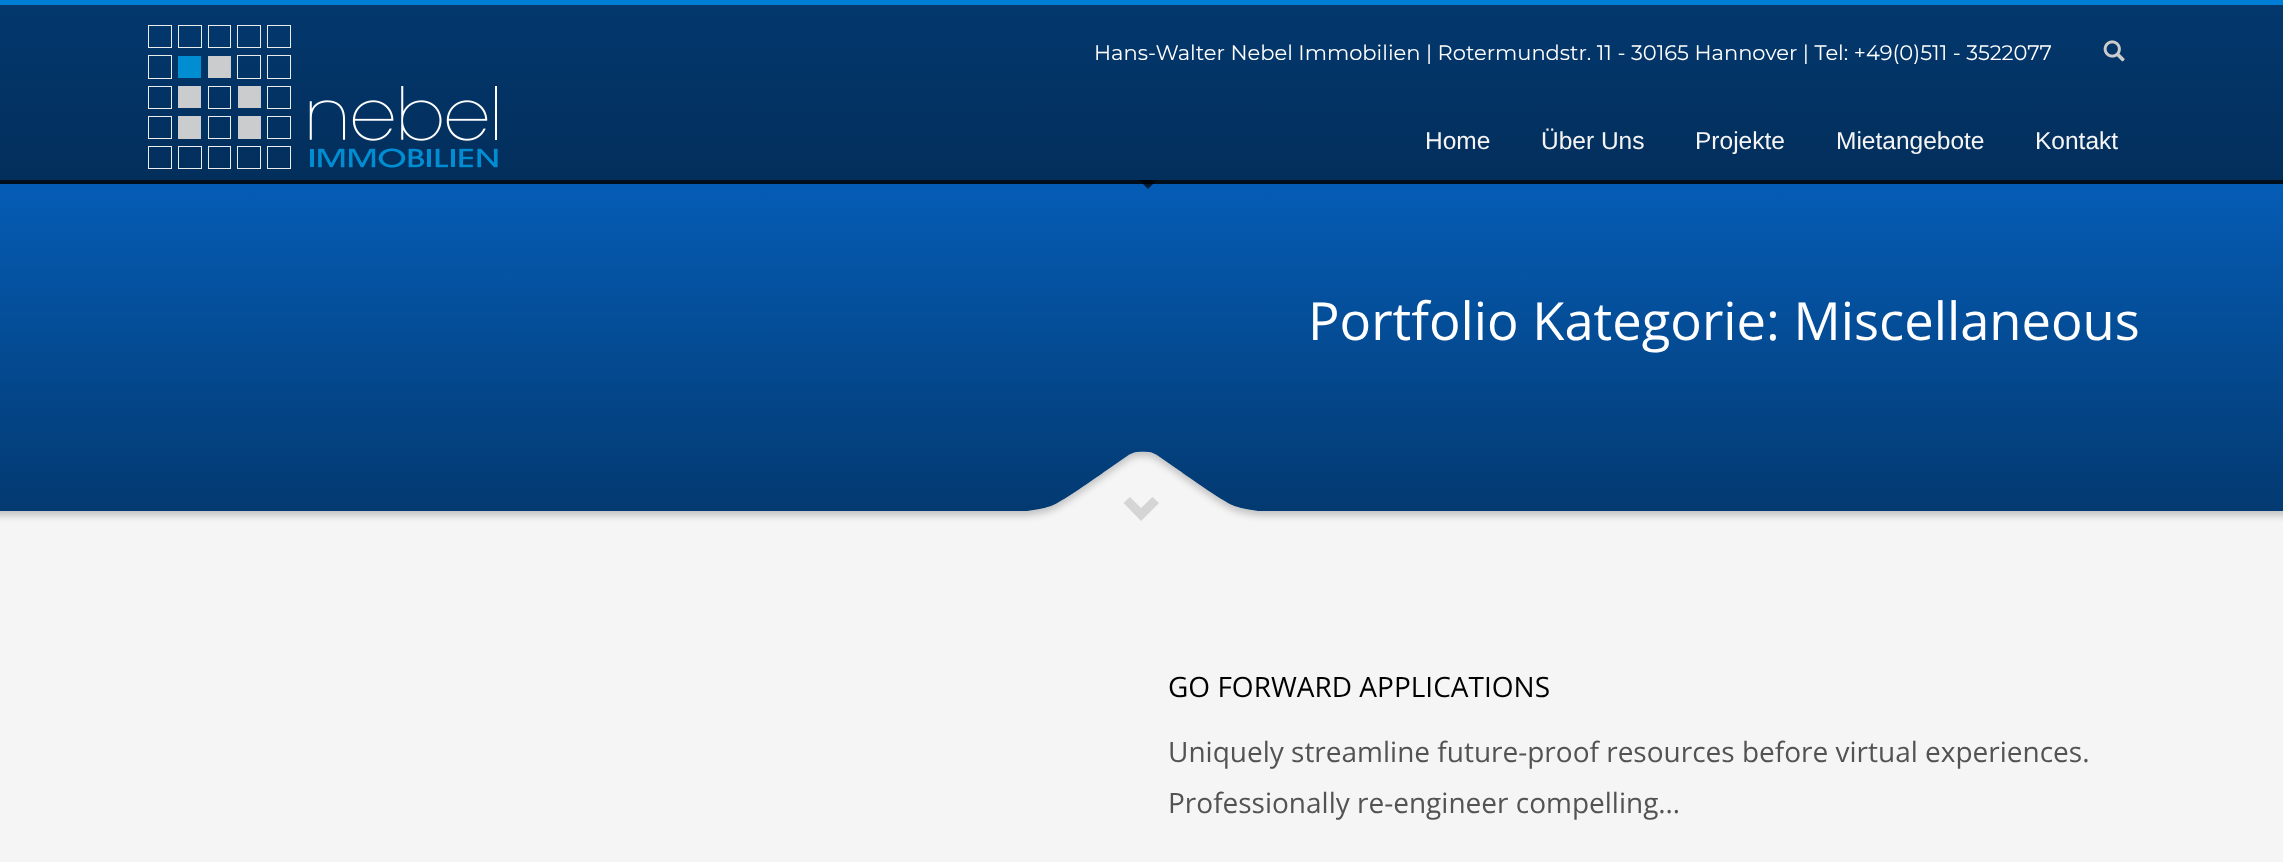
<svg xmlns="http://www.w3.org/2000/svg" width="2283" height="862">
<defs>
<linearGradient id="g1" gradientUnits="userSpaceOnUse" x1="1142" y1="0" x2="1142" y2="525"><stop offset="0" stop-color="#03386e"/><stop offset="1" stop-color="#021c37"/></linearGradient>
<linearGradient id="g2" gradientUnits="userSpaceOnUse" x1="1142" y1="0" x2="1142" y2="525"><stop offset="0" stop-color="#0670dc"/><stop offset="1" stop-color="#03386e"/></linearGradient>
</defs>
<rect width="100%" height="100%" fill="#f5f5f5"/>
<rect width="2283" height="5" fill="#007dd4"/>
<rect y="180" width="2283" height="4" fill="#010e1b"/>
<rect y="5" width="2283" height="175" fill="url(#g1)"/>
<image x="148" y="25" width="350" height="144" href="media/1.png"/>
<text x="1094" y="60" style="font-family:Montserrat;font-size:21px;font-weight:100;fill:#fff">Hans-Walter Nebel Immobilien | Rotermundstr. 11 - 30165 Hannover | Tel: +49(0)511 - 3522077</text>
<image x="2103" y="40" width="22" height="22" href="media/2.png"/>
<text x="1425" y="149" style="font-family:Liberation Sans;font-size:24.5px;fill:#f5f5f5">Home</text>
<text x="1541" y="149" style="font-family:Liberation Sans;font-size:24.5px;fill:#f5f5f5">Über Uns</text>
<text x="1695" y="149" style="font-family:Liberation Sans;font-size:24.5px;fill:#f5f5f5">Projekte</text>
<text x="1836" y="149" style="font-family:Liberation Sans;font-size:24.5px;fill:#f5f5f5">Mietangebote</text>
<text x="2035" y="149" style="font-family:Liberation Sans;font-size:24.5px;fill:#f5f5f5">Kontakt</text>
<rect y="184" width="2283" height="327" fill="url(#g2)"/>
<path d="M1139 180h18l-9 9z" fill="#000000b3"/>
<text x="1308" y="340" style="font-family:Open Sans;font-size:52.5px;fill:#fff">Portfolio Kategorie: Miscellaneous</text>
<image x="0" y="451" width="2283" height="74" href="media/3.png"/>
<path d="M1159 503l-18 18l-17.5-18l6.5-6l11 11l11.5-11z" fill="#d5d5d5"/>
<text x="1168" y="697" style="font-family:Open Sans;font-size:28px;fill:#000">GO FORWARD APPLICATIONS</text>
<text x="1168" y="762" style="font-family:Open Sans;font-size:28px;fill:#535353">Uniquely streamline future-proof resources before virtual experiences.</text>
<text x="1168" y="813" style="font-family:Open Sans;font-size:28px;fill:#535353">Professionally re-engineer compelling…</text>
</svg>
